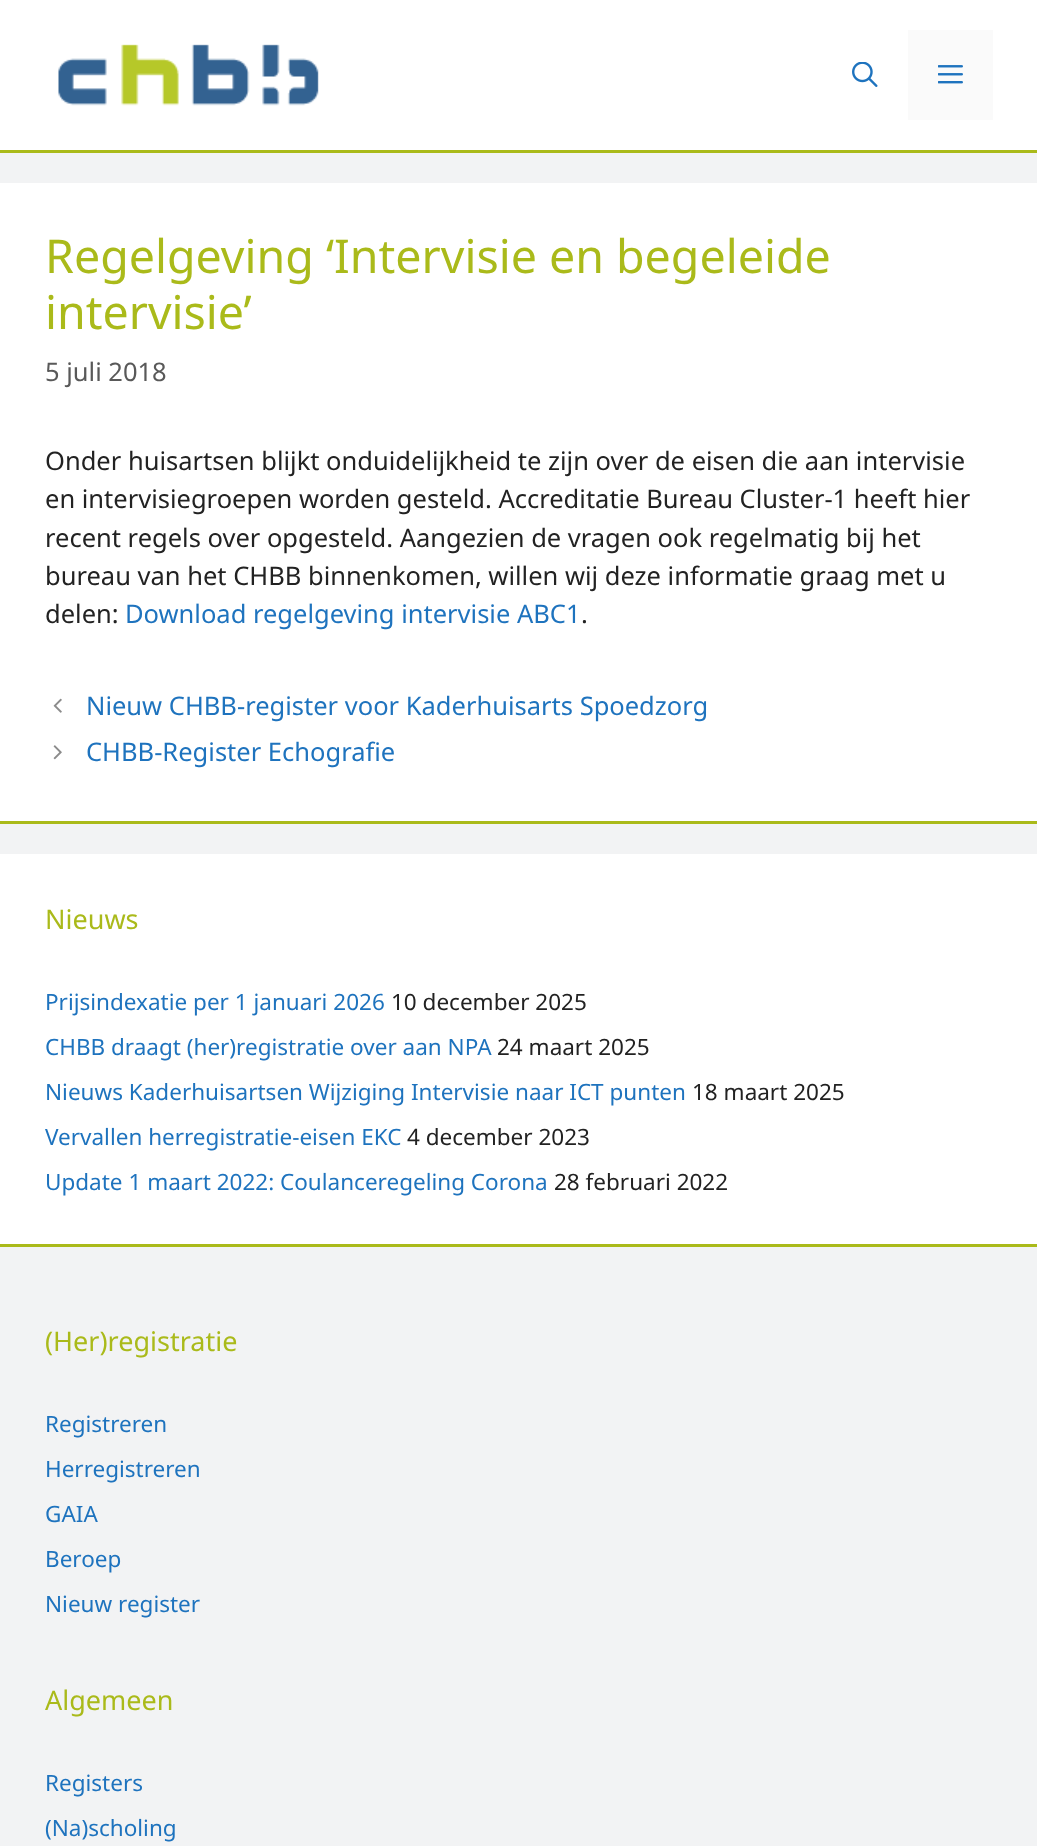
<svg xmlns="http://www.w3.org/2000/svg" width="1037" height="1846">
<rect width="100%" height="100%" fill="#f2f3f4"/>
<rect width="1037" height="150" fill="#fff"/>
<rect y="150" width="1037" height="3" fill="#aaba1a"/>
<image x="58" y="44" width="261" height="62" href="media/1.png"/>
<image x="852" y="62" width="26" height="25" href="media/2.png"/>
<rect x="908" y="30" width="85" height="90" fill="#fafafa"/>
<image x="938" y="65" width="25" height="19" href="media/3.png"/>
<rect y="821" width="1037" height="3" fill="#aaba1a"/>
<rect y="183" width="1037" height="638" fill="#fff"/>
<text x="45" y="273" style="font-family:Noto Sans;font-size:46.5px;fill:#aaba1a">Regelgeving ‘Intervisie en begeleide</text>
<text x="45" y="329" style="font-family:Noto Sans;font-size:46.5px;fill:#aaba1a">intervisie’</text>
<text x="45" y="381" style="font-family:Noto Sans;font-size:25.5px;fill:#595959">5 juli 2018</text>
<text x="45" y="470" style="font-family:Noto Sans;font-size:25.5px;fill:#222">Onder huisartsen blijkt onduidelijkheid te zijn over de eisen die aan intervisie</text>
<text x="45" y="508" style="font-family:Noto Sans;font-size:25.5px;fill:#222">en intervisiegroepen worden gesteld. Accreditatie Bureau Cluster-1 heeft hier</text>
<text x="45" y="547" style="font-family:Noto Sans;font-size:25.5px;fill:#222">recent regels over opgesteld. Aangezien de vragen ook regelmatig bij het</text>
<text x="45" y="585" style="font-family:Noto Sans;font-size:25.5px;fill:#222">bureau van het CHBB binnenkomen, willen wij deze informatie graag met u</text>
<text x="45" y="623" style="font-family:Noto Sans;font-size:25.5px;fill:#222">delen:</text>
<text x="125" y="623" style="font-family:Noto Sans;font-size:25.5px;fill:#1e73be">Download regelgeving intervisie ABC1</text>
<text x="581" y="623" style="font-family:Noto Sans;font-size:25.5px;fill:#222">.</text>
<image x="53" y="698" width="9" height="15" href="media/4.png"/>
<text x="86" y="715" style="font-family:Noto Sans;font-size:25.5px;fill:#1e73be">Nieuw CHBB-register voor Kaderhuisarts Spoedzorg</text>
<image x="53" y="745" width="9" height="15" href="media/5.png"/>
<text x="86" y="761" style="font-family:Noto Sans;font-size:25.5px;fill:#1e73be">CHBB-Register Echografie</text>
<rect y="854" width="1037" height="390" fill="#fff"/>
<rect y="1244" width="1037" height="3" fill="#aaba1a"/>
<text x="45" y="929" style="font-family:Noto Sans;font-size:27px;fill:#aaba1a">Nieuws</text>
<text x="45" y="1010" style="font-family:Noto Sans;font-size:22.5px;fill:#1e73be">Prijsindexatie per 1 januari 2026</text>
<text x="391" y="1010" style="font-family:Noto Sans;font-size:22.5px;fill:#222">10 december 2025</text>
<text x="45" y="1055" style="font-family:Noto Sans;font-size:22.5px;fill:#1e73be">CHBB draagt (her)registratie over aan NPA</text>
<text x="497" y="1055" style="font-family:Noto Sans;font-size:22.5px;fill:#222">24 maart 2025</text>
<text x="45" y="1100" style="font-family:Noto Sans;font-size:22.5px;fill:#1e73be">Nieuws Kaderhuisartsen Wijziging Intervisie naar ICT punten</text>
<text x="692" y="1100" style="font-family:Noto Sans;font-size:22.5px;fill:#222">18 maart 2025</text>
<text x="45" y="1145" style="font-family:Noto Sans;font-size:22.5px;fill:#1e73be">Vervallen herregistratie-eisen EKC</text>
<text x="407" y="1145" style="font-family:Noto Sans;font-size:22.5px;fill:#222">4 december 2023</text>
<text x="45" y="1190" style="font-family:Noto Sans;font-size:22.5px;fill:#1e73be">Update 1 maart 2022: Coulanceregeling Corona</text>
<text x="554" y="1190" style="font-family:Noto Sans;font-size:22.5px;fill:#222">28 februari 2022</text>
<text x="45" y="1351" style="font-family:Noto Sans;font-size:27px;fill:#aaba1a">(Her)registratie</text>
<text x="45" y="1432" style="font-family:Noto Sans;font-size:22.5px;fill:#1e73be">Registreren</text>
<text x="45" y="1477" style="font-family:Noto Sans;font-size:22.5px;fill:#1e73be">Herregistreren</text>
<text x="45" y="1522" style="font-family:Noto Sans;font-size:22.5px;fill:#1e73be">GAIA</text>
<text x="45" y="1567" style="font-family:Noto Sans;font-size:22.5px;fill:#1e73be">Beroep</text>
<text x="45" y="1612" style="font-family:Noto Sans;font-size:22.5px;fill:#1e73be">Nieuw register</text>
<text x="45" y="1710" style="font-family:Noto Sans;font-size:27px;fill:#aaba1a">Algemeen</text>
<text x="45" y="1791" style="font-family:Noto Sans;font-size:22.5px;fill:#1e73be">Registers</text>
<text x="45" y="1836" style="font-family:Noto Sans;font-size:22.5px;fill:#1e73be">(Na)scholing</text>
</svg>
